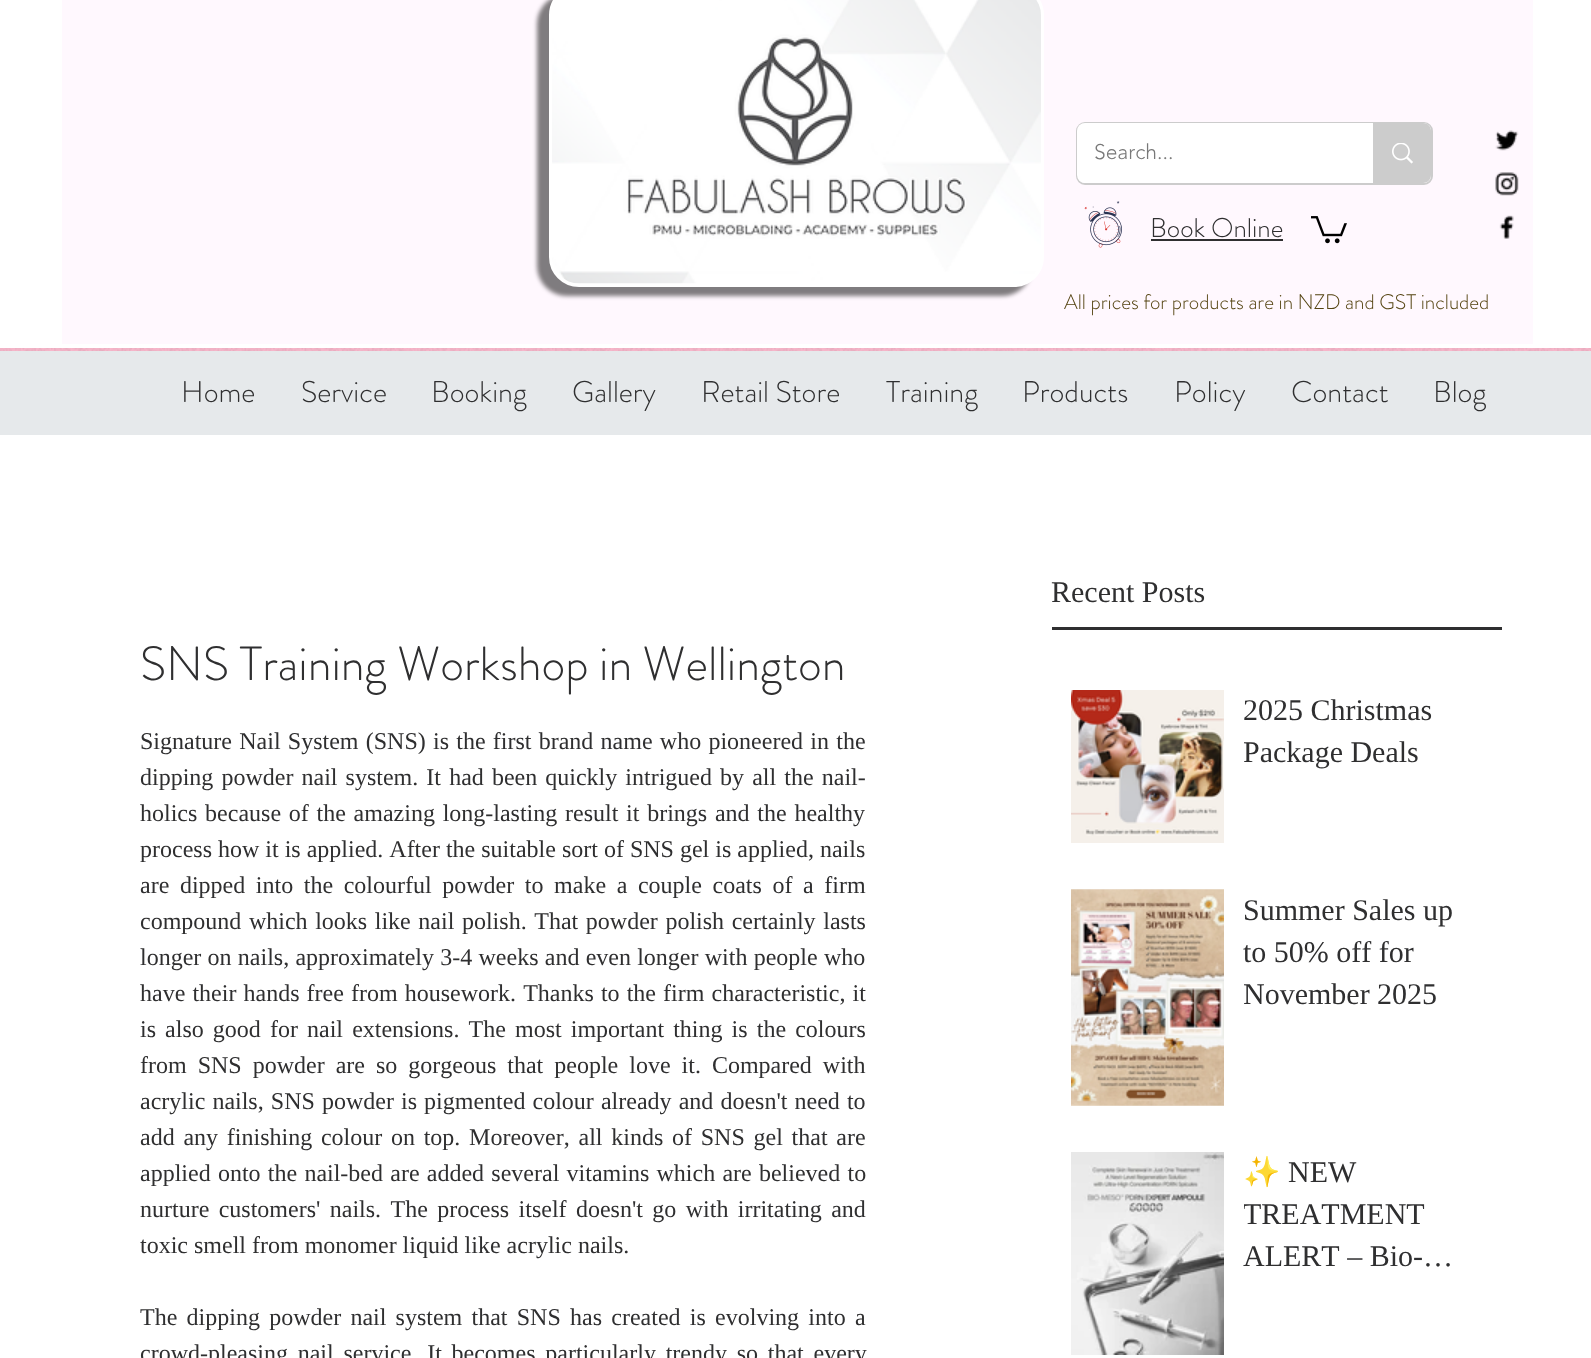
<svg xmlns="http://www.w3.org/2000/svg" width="1591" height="1358">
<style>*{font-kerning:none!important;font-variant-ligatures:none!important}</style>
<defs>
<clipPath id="clip1"><rect x="1244" y="689" width="240" height="84"/></clipPath>
<clipPath id="clip2"><rect x="1244" y="888" width="240" height="126"/></clipPath>
<clipPath id="clip3"><rect x="1244" y="1151" width="240" height="126"/></clipPath>
</defs>
<rect width="100%" height="100%" fill="#fff"/>
<rect x="62" width="1471" height="344" fill="#fff8fe"/>
<rect x="537" y="-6" width="495" height="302" rx="30" fill="#00000080" filter="blur(2px)"/>
<rect x="550.5" y="-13.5" width="492" height="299" rx="28.5" fill="#fff" stroke="#fff" stroke-width="3"/>
<image x="552" y="0" width="489" height="284" href="media/1.png"/>
<rect x="1077" y="123" width="355" height="61" rx="8" fill="none" stroke="#ccc" stroke-width="2"/>
<rect x="1077" y="123" width="354" height="60" rx="8" fill="#fff"/>
<text x="1094" y="159" style="font-family:'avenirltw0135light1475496';font-size:21px;font-weight:300;fill:#787878">Search...</text>
<path d="M1373 123h50c4.5 0 8 3.5 8 8v44c0 4.5-3.5 8-8 8h-50z" fill="#ccc"/>
<image x="1392" y="143" width="21" height="21" href="media/2.png"/>
<image x="1495" y="130" width="24" height="21" href="media/3.png"/>
<image x="1495" y="172" width="24" height="24" href="media/4.png"/>
<image x="1499" y="215" width="15" height="24" href="media/5.png"/>
<image x="1084" y="201" width="38" height="47" href="media/6.png"/>
<text x="1150" y="237" style="font-family:'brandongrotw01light';font-size:27px;font-weight:300;fill:#2f2f30">Book Online</text>
<rect x="1151" y="239" width="132" height="2" fill="#2f2f30"/>
<image x="1311" y="216" width="36" height="28" href="media/7.png"/>
<text x="1064" y="309" style="font-family:'brandongrotw01light';font-size:21px;font-weight:300;fill:#554412">All prices for products are in NZD and GST included</text>
<rect y="351" width="1591" height="84" fill="#e6e9eb"/>
<text x="181" y="402" style="font-family:'brandongrotw01light';font-size:30px;font-weight:300;fill:#2f2f30">Home</text>
<text x="301" y="402" style="font-family:'brandongrotw01light';font-size:30px;font-weight:300;fill:#2f2f30">Service</text>
<text x="431" y="402" style="font-family:'brandongrotw01light';font-size:30px;font-weight:300;fill:#2f2f30">Booking</text>
<text x="572" y="402" style="font-family:'brandongrotw01light';font-size:30px;font-weight:300;fill:#2f2f30">Gallery</text>
<text x="701" y="402" style="font-family:'brandongrotw01light';font-size:30px;font-weight:300;fill:#2f2f30">Retail Store</text>
<text x="886" y="402" style="font-family:'brandongrotw01light';font-size:30px;font-weight:300;fill:#2f2f30">Training</text>
<text x="1022" y="402" style="font-family:'brandongrotw01light';font-size:30px;font-weight:300;fill:#2f2f30">Products</text>
<text x="1174" y="402" style="font-family:'brandongrotw01light';font-size:30px;font-weight:300;fill:#2f2f30">Policy</text>
<text x="1291" y="402" style="font-family:'brandongrotw01light';font-size:30px;font-weight:300;fill:#2f2f30">Contact</text>
<text x="1433" y="402" style="font-family:'brandongrotw01light';font-size:30px;font-weight:300;fill:#2f2f30">Blog</text>
<rect y="348" width="1591" height="3" fill="#f8b7cb"/>
<image x="0" y="348" width="1591" height="3" href="media/8.png"/>
<text x="140" y="680" style="font-family:'brandongrotw01light';font-size:48px;font-weight:300;fill:#2f2f30">SNS Training Workshop in Wellington</text>
<text x="140" y="749" word-spacing="1.25" style="font-family:Liberation Serif;font-size:24px;fill:#2f2f30">Signature Nail System (SNS) is the first brand name who pioneered in the</text>
<text x="140" y="785" word-spacing="2.1" style="font-family:Liberation Serif;font-size:24px;fill:#2f2f30">dipping powder nail system. It had been quickly intrigued by all the nail-</text>
<text x="140" y="821" word-spacing="1.75" style="font-family:Liberation Serif;font-size:24px;fill:#2f2f30">holics because of the amazing long-lasting result it brings and the healthy</text>
<text x="140" y="857" style="font-family:Liberation Serif;font-size:24px;fill:#2f2f30">process how it is applied. After the suitable sort of SNS gel is applied, nails</text>
<text x="140" y="893" word-spacing="4.6" style="font-family:Liberation Serif;font-size:24px;fill:#2f2f30">are dipped into the colourful powder to make a couple coats of a firm</text>
<text x="140" y="929" word-spacing="1.6" style="font-family:Liberation Serif;font-size:24px;fill:#2f2f30">compound which looks like nail polish. That powder polish certainly lasts</text>
<text x="140" y="965" word-spacing="0.25" style="font-family:Liberation Serif;font-size:24px;fill:#2f2f30">longer on nails, approximately 3-4 weeks and even longer with people who</text>
<text x="140" y="1001" word-spacing="1.1" style="font-family:Liberation Serif;font-size:24px;fill:#2f2f30">have their hands free from housework. Thanks to the firm characteristic, it</text>
<text x="140" y="1037" word-spacing="3.1" style="font-family:Liberation Serif;font-size:24px;fill:#2f2f30">is also good for nail extensions. The most important thing is the colours</text>
<text x="140" y="1073" word-spacing="5" style="font-family:Liberation Serif;font-size:24px;fill:#2f2f30">from SNS powder are so gorgeous that people love it. Compared with</text>
<text x="140" y="1109" word-spacing="1.1" style="font-family:Liberation Serif;font-size:24px;fill:#2f2f30">acrylic nails, SNS powder is pigmented colour already and doesn't need to</text>
<text x="140" y="1145" word-spacing="2.75" style="font-family:Liberation Serif;font-size:24px;fill:#2f2f30">add any finishing colour on top. Moreover, all kinds of SNS gel that are</text>
<text x="140" y="1181" word-spacing="1.25" style="font-family:Liberation Serif;font-size:24px;fill:#2f2f30">applied onto the nail-bed are added several vitamins which are believed to</text>
<text x="140" y="1217" word-spacing="3.4" style="font-family:Liberation Serif;font-size:24px;fill:#2f2f30">nurture customers' nails. The process itself doesn't go with irritating and</text>
<text x="140" y="1253" style="font-family:Liberation Serif;font-size:24px;fill:#2f2f30">toxic smell from monomer liquid like acrylic nails.</text>
<text x="140" y="1325" word-spacing="3.25" style="font-family:Liberation Serif;font-size:24px;fill:#2f2f30">The dipping powder nail system that SNS has created is evolving into a</text>
<text x="140" y="1361" word-spacing="3.75" style="font-family:Liberation Serif;font-size:24px;fill:#2f2f30">crowd-pleasing nail service. It becomes particularly trendy so that every</text>
<text x="1051" y="602" style="font-family:Liberation Serif;font-size:30px;fill:#2f2f30">Recent Posts</text>
<rect x="1052" y="627" width="450" height="3" fill="#2f2f30"/>
<image x="1071" y="690" width="153" height="153" href="media/9.png"/>
<text x="1243" y="720" style="font-family:Liberation Serif;font-size:30px;fill:#2f2f30">2025 Christmas</text>
<g clip-path="url(#clip1)">
<text x="1243" y="762" style="font-family:Liberation Serif;font-size:30px;fill:#2f2f30">Package Deals</text>
</g>
<image x="1071" y="889" width="153" height="217" href="media/10.png"/>
<image x="1071" y="889" width="153" height="217" href="media/11.png"/>
<text x="1243" y="920" style="font-family:Liberation Serif;font-size:30px;fill:#2f2f30">Summer Sales up</text>
<text x="1243" y="962" style="font-family:Liberation Serif;font-size:30px;fill:#2f2f30">to 50% off for</text>
<g clip-path="url(#clip2)">
<text x="1243" y="1004" style="font-family:Liberation Serif;font-size:30px;fill:#2f2f30">November 2025</text>
</g>
<image x="1071" y="1152" width="153" height="203" href="media/12.png"/>
<g clip-path="url(#clip3)">
<text x="1243" y="1182" style="font-family:Noto Color Emoji;font-size:30px;fill:#2f2f30">✨</text>
</g>
<text x="1288" y="1182" style="font-family:Liberation Serif;font-size:30px;fill:#2f2f30">NEW</text>
<g clip-path="url(#clip3)">
<text x="1243" y="1224" style="font-family:Liberation Serif;font-size:30px;fill:#2f2f30">TREATMENT</text>
</g>
<text x="1243" y="1266" style="font-family:Liberation Serif;font-size:30px;fill:#2f2f30">ALERT – Bio-…</text>
</svg>
